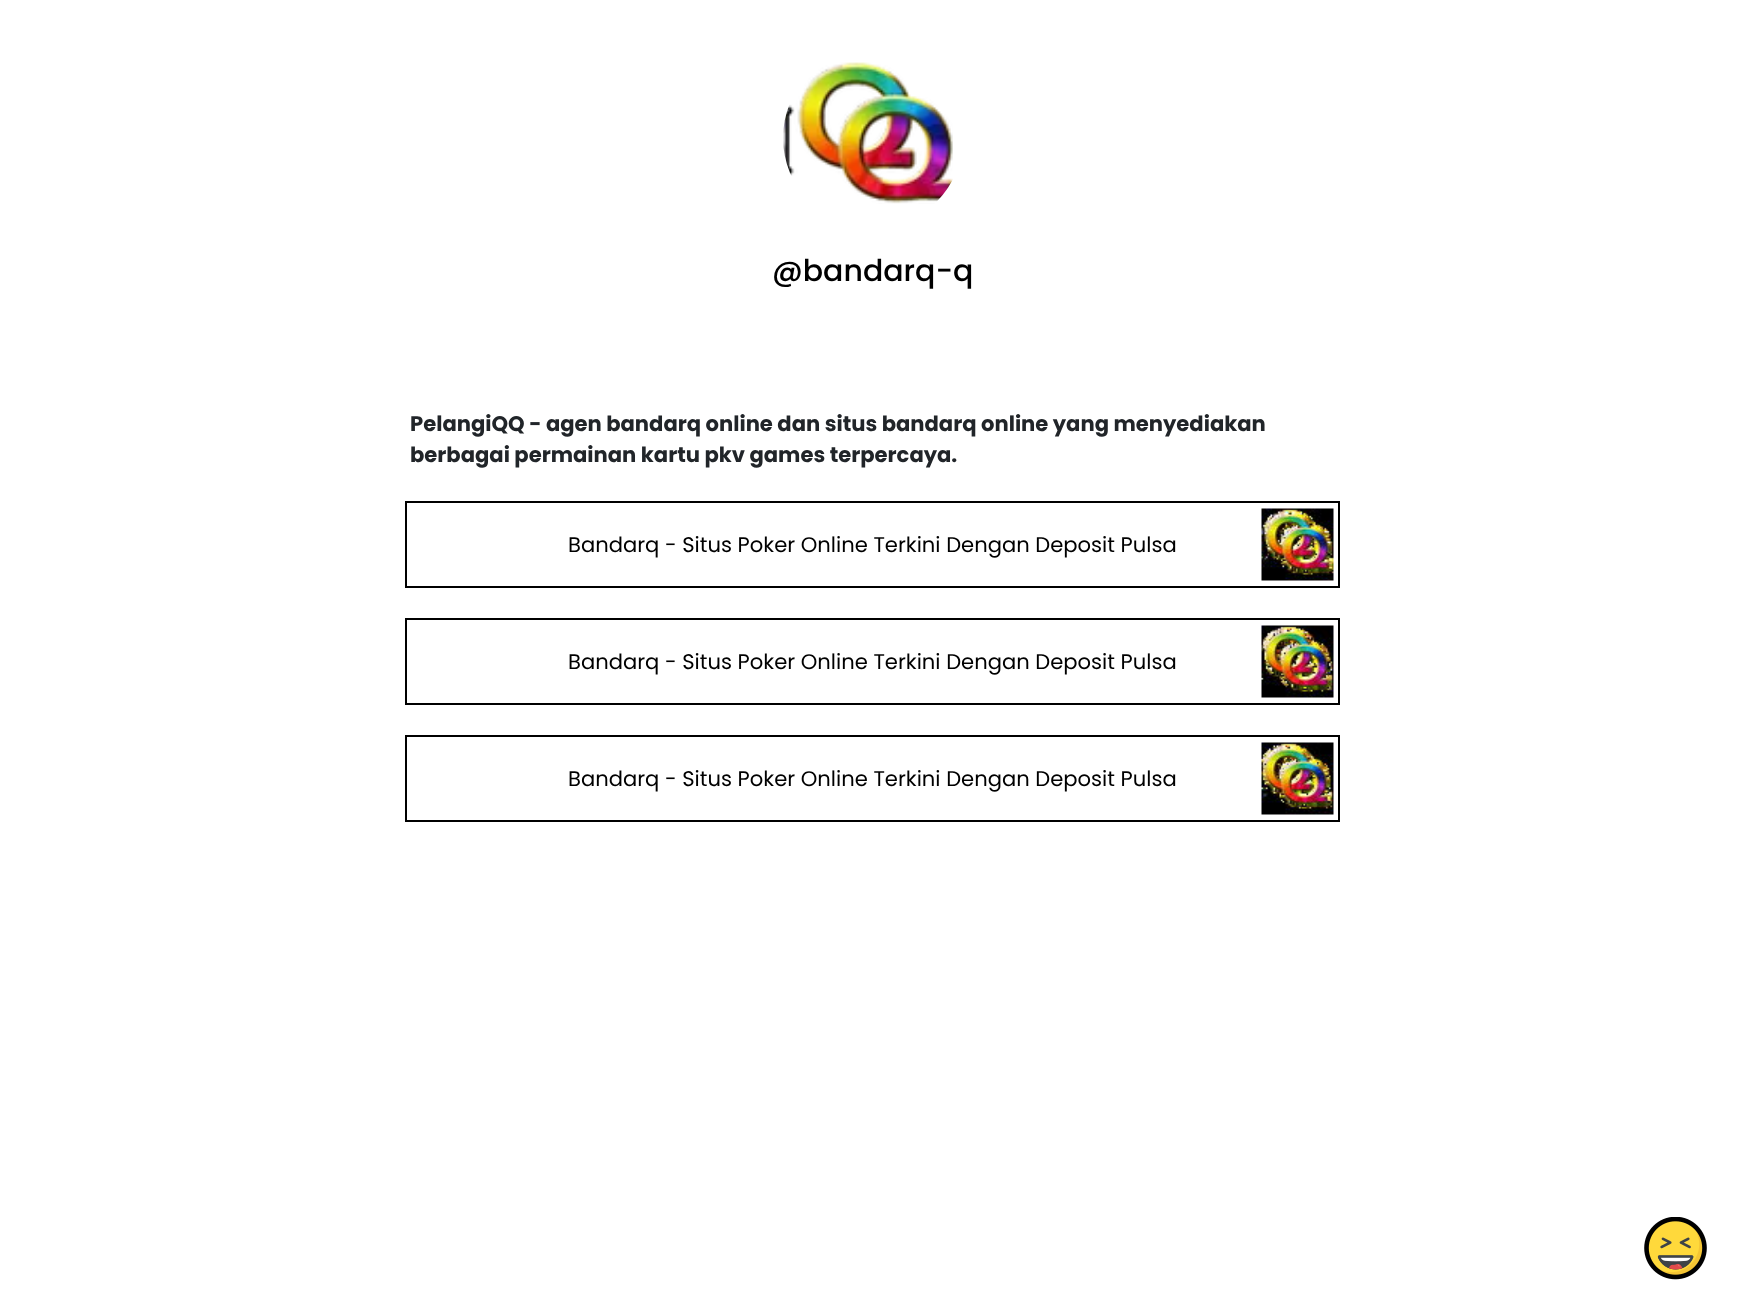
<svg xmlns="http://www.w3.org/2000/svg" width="1744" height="1313">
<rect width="100%" height="100%" fill="#fff"/>
<image x="783" y="62" width="170" height="142" href="media/1.png"/>
<text x="772" y="281" style="font-family:Poppins;font-size:30px;font-weight:500;fill:#000">@bandarq-q</text>
<text x="410" y="431" style="font-family:Poppins;font-size:21.1px;font-weight:bold;fill:#212529">PelangiQQ - agen bandarq online dan situs bandarq online yang menyediakan</text>
<text x="410" y="462" style="font-family:Poppins;font-size:21.1px;font-weight:bold;fill:#212529">berbagai permainan kartu pkv games terpercaya.</text>
<rect x="406" y="502" width="933" height="85" fill="none" stroke="#000" stroke-width="2"/>
<text x="568" y="552" style="font-family:Poppins;font-size:21.1px;fill:#000">Bandarq - Situs Poker Online Terkini Dengan Deposit Pulsa</text>
<image x="1261" y="508" width="73" height="73" href="media/2.png"/>
<rect x="406" y="619" width="933" height="85" fill="none" stroke="#000" stroke-width="2"/>
<text x="568" y="669" style="font-family:Poppins;font-size:21.1px;fill:#000">Bandarq - Situs Poker Online Terkini Dengan Deposit Pulsa</text>
<image x="1261" y="625" width="73" height="73" href="media/3.png"/>
<rect x="406" y="736" width="933" height="85" fill="none" stroke="#000" stroke-width="2"/>
<text x="568" y="786" style="font-family:Poppins;font-size:21.1px;fill:#000">Bandarq - Situs Poker Online Terkini Dengan Deposit Pulsa</text>
<image x="1261" y="742" width="73" height="73" href="media/4.png"/>
<image x="1644" y="1217" width="63" height="63" href="media/5.png"/>
</svg>
